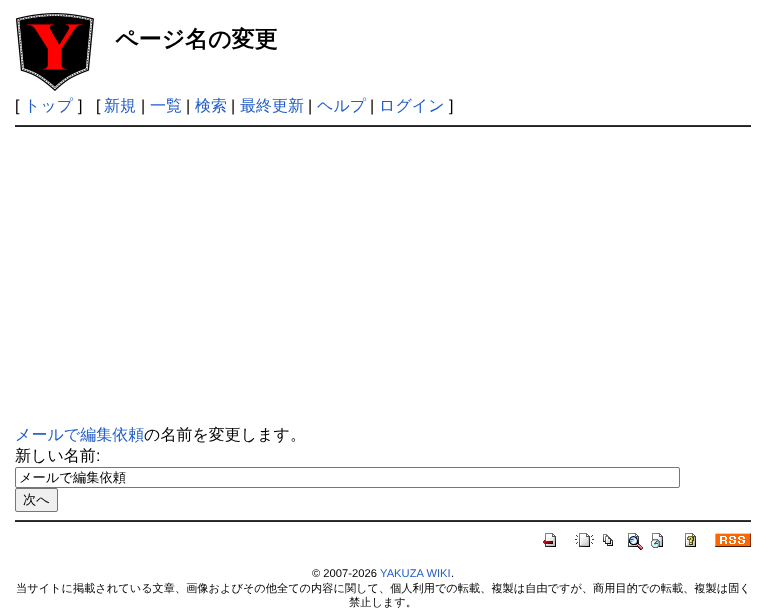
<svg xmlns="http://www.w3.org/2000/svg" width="766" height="608">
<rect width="100%" height="100%" fill="#fff"/>
<image x="15" y="13" width="79" height="78" href="media/1.png"/>
<text x="115" y="47" style="font-family:WenQuanYi Zen Hei;font-size:23px;font-weight:bold;fill:#000">ページ名の変更</text>
<text x="15" y="111" style="font-family:Liberation Sans;font-size:16px;fill:#000">[</text>
<text x="24" y="111" style="font-family:WenQuanYi Zen Hei;font-size:16px;font-weight:500;fill:#215dc6">トップ</text>
<text x="78" y="111" style="font-family:Liberation Sans;font-size:16px;fill:#000">]</text>
<text x="96" y="111" style="font-family:Liberation Sans;font-size:16px;fill:#000">[</text>
<text x="104" y="111" style="font-family:WenQuanYi Zen Hei;font-size:16px;font-weight:500;fill:#215dc6">新規</text>
<text x="141" y="111" style="font-family:Liberation Sans;font-size:16px;fill:#000">|</text>
<text x="150" y="111" style="font-family:WenQuanYi Zen Hei;font-size:16px;font-weight:500;fill:#215dc6">一覧</text>
<text x="186" y="111" style="font-family:Liberation Sans;font-size:16px;fill:#000">|</text>
<text x="195" y="111" style="font-family:WenQuanYi Zen Hei;font-size:16px;font-weight:500;fill:#215dc6">検索</text>
<text x="231" y="111" style="font-family:Liberation Sans;font-size:16px;fill:#000">|</text>
<text x="240" y="111" style="font-family:WenQuanYi Zen Hei;font-size:16px;font-weight:500;fill:#215dc6">最終更新</text>
<text x="308" y="111" style="font-family:Liberation Sans;font-size:16px;fill:#000">|</text>
<text x="317" y="111" style="font-family:WenQuanYi Zen Hei;font-size:16px;font-weight:500;fill:#215dc6">ヘルプ</text>
<text x="370" y="111" style="font-family:Liberation Sans;font-size:16px;fill:#000">|</text>
<text x="379" y="111" style="font-family:WenQuanYi Zen Hei;font-size:16px;font-weight:500;fill:#215dc6">ログイン</text>
<text x="449" y="111" style="font-family:Liberation Sans;font-size:16px;fill:#000">]</text>
<rect x="15" y="125" width="736" height="1" fill="#333"/>
<rect x="15" y="126" width="736" height="1" fill="#222"/>
<text x="15" y="440" style="font-family:WenQuanYi Zen Hei;font-size:16px;font-weight:500;fill:#215dc6">メールで編集依頼</text>
<text x="144" y="440" style="font-family:WenQuanYi Zen Hei;font-size:16px;font-weight:500;fill:#000">の名前を変更します。</text>
<text x="15" y="461" style="font-family:WenQuanYi Zen Hei;font-size:16px;font-weight:500;fill:#000">新しい名前</text>
<text x="96" y="461" style="font-family:Liberation Sans;font-size:16px;fill:#000">:</text>
<rect x="15.5" y="467.5" width="664" height="20" rx="1.5" fill="none" stroke="#767676"/>
<text x="19" y="482" style="font-family:WenQuanYi Zen Hei;font-size:13.25px;font-weight:500;fill:#000">メールで編集依頼</text>
<rect x="15.5" y="488.5" width="42" height="23" rx="1.5" fill="#efefef" stroke="#767676"/>
<text x="23" y="504" style="font-family:WenQuanYi Zen Hei;font-size:13.25px;font-weight:500;fill:#000">次へ</text>
<rect x="15" y="520" width="736" height="1" fill="#333"/>
<rect x="15" y="521" width="736" height="1" fill="#222"/>
<image x="543" y="533" width="13" height="14" href="media/2.png"/>
<image x="575" y="533" width="19" height="14" href="media/3.png"/>
<image x="603" y="534" width="10" height="12" href="media/4.png"/>
<image x="628" y="533" width="15" height="17" href="media/5.png"/>
<image x="651" y="533" width="12" height="15" href="media/6.png"/>
<image x="685" y="533" width="11" height="14" href="media/7.png"/>
<image x="715" y="533" width="36" height="14" href="media/8.png"/>
<text x="312" y="577" style="font-family:Liberation Sans;font-size:11.2px;fill:#000">© 2007-2026</text>
<text x="380" y="577" style="font-family:Liberation Sans;font-size:11.2px;fill:#215dc6">YAKUZA WIKI</text>
<text x="451" y="577" style="font-family:Liberation Sans;font-size:11.2px;fill:#000">.</text>
<text x="16" y="592" style="font-family:WenQuanYi Zen Hei;font-size:11.2px;font-weight:500;fill:#000">当サイトに掲載されている文章、画像およびその他全ての内容に関して、個人利用での転載、複製は自由ですが、商用目的での転載、複製は固く</text>
<text x="349" y="606" style="font-family:WenQuanYi Zen Hei;font-size:11.2px;font-weight:500;fill:#000">禁止します。</text>
</svg>
